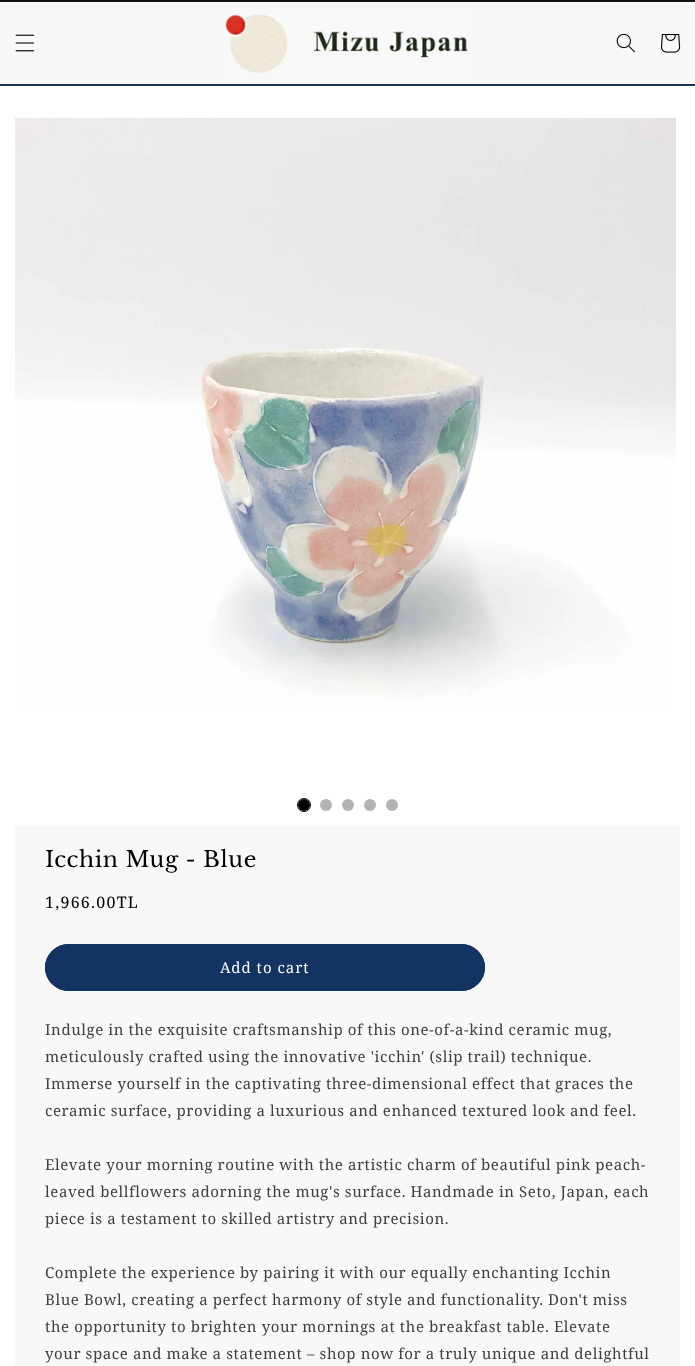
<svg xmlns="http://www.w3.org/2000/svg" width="695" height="1366">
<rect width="100%" height="100%" fill="#fff"/>
<rect y="1" width="695" height="1" fill="#141414"/>
<rect width="695" height="1" fill="#0f0f0f"/>
<rect y="2" width="695" height="82" fill="#f8f8f8"/>
<rect y="84" width="695" height="2" fill="#1b3356"/>
<image x="15" y="34" width="20" height="18" href="media/1.png"/>
<image x="223" y="9" width="246" height="64" href="media/2.png"/>
<image x="616" y="33" width="19" height="20" href="media/3.png"/>
<image x="661" y="34" width="20" height="19" href="media/4.png"/>
<image x="15" y="118" width="661" height="594" href="media/5.png"/>
<circle cx="304" cy="805" r="6.5" fill="none" stroke="#000"/>
<circle cx="304" cy="805" r="6" fill="#000"/>
<circle cx="326" cy="805" r="6" fill="#b3b3b3"/>
<circle cx="348" cy="805" r="6" fill="#b3b3b3"/>
<circle cx="370" cy="805" r="6" fill="#b3b3b3"/>
<circle cx="392" cy="805" r="6" fill="#b3b3b3"/>
<rect x="15" y="826" width="665" height="540" fill="#f8f8f8"/>
<text x="45" y="867" style="font-family:Libre Baskerville;font-size:22px;letter-spacing:0.6px;fill:#000">Icchin Mug - Blue</text>
<text x="45" y="908" style="font-family:Noto Serif;font-size:16px;letter-spacing:1.25px;fill:#000">1,966.00TL</text>
<rect x="45" y="944" width="440" height="47" rx="23.5" fill="#133362"/>
<rect x="45.5" y="944.5" width="439" height="46" rx="23" fill="none" stroke="#133362"/>
<text x="220" y="973" style="font-family:Noto Serif;font-size:15px;letter-spacing:1px;fill:#fff">Add to cart</text>
<text x="45" y="1035" style="font-family:Noto Serif;font-size:15px;letter-spacing:0.6px;fill:#3e3e3e">Indulge in the exquisite craftsmanship of this one-of-a-kind ceramic mug,</text>
<text x="45" y="1062" style="font-family:Noto Serif;font-size:15px;letter-spacing:0.6px;fill:#3e3e3e">meticulously crafted using the innovative 'icchin' (slip trail) technique.</text>
<text x="45" y="1089" style="font-family:Noto Serif;font-size:15px;letter-spacing:0.6px;fill:#3e3e3e">Immerse yourself in the captivating three-dimensional effect that graces the</text>
<text x="45" y="1116" style="font-family:Noto Serif;font-size:15px;letter-spacing:0.6px;fill:#3e3e3e">ceramic surface, providing a luxurious and enhanced textured look and feel.</text>
<text x="45" y="1170" style="font-family:Noto Serif;font-size:15px;letter-spacing:0.6px;fill:#3e3e3e">Elevate your morning routine with the artistic charm of beautiful pink peach-</text>
<text x="45" y="1197" style="font-family:Noto Serif;font-size:15px;letter-spacing:0.6px;fill:#3e3e3e">leaved bellflowers adorning the mug's surface. Handmade in Seto, Japan, each</text>
<text x="45" y="1224" style="font-family:Noto Serif;font-size:15px;letter-spacing:0.6px;fill:#3e3e3e">piece is a testament to skilled artistry and precision.</text>
<text x="45" y="1278" style="font-family:Noto Serif;font-size:15px;letter-spacing:0.6px;fill:#3e3e3e">Complete the experience by pairing it with our equally enchanting Icchin</text>
<text x="45" y="1305" style="font-family:Noto Serif;font-size:15px;letter-spacing:0.6px;fill:#3e3e3e">Blue Bowl, creating a perfect harmony of style and functionality. Don't miss</text>
<text x="45" y="1332" style="font-family:Noto Serif;font-size:15px;letter-spacing:0.6px;fill:#3e3e3e">the opportunity to brighten your mornings at the breakfast table. Elevate</text>
<text x="45" y="1359" style="font-family:Noto Serif;font-size:15px;letter-spacing:0.6px;fill:#3e3e3e">your space and make a statement – shop now for a truly unique and delightful</text>
</svg>
